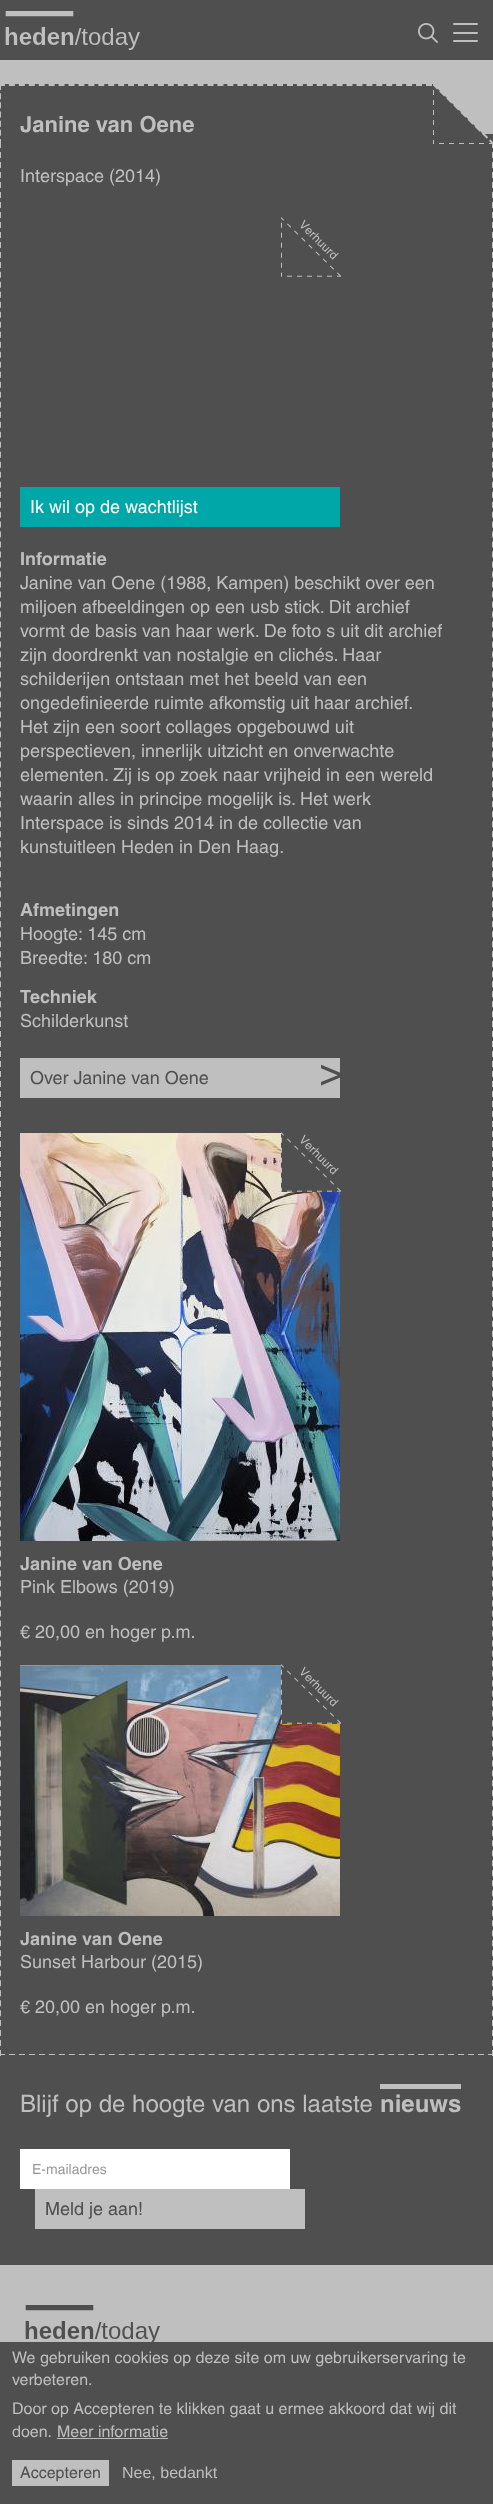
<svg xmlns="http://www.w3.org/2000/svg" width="493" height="2504">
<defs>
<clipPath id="clip1"><rect y="143" width="493" height="1912"/></clipPath>
</defs>
<rect width="100%" height="100%" fill="#4f4f4f"/>
<image x="5" y="11" width="135" height="39" href="media/1.png"/>
<image x="418" y="23" width="20" height="20" href="media/2.png"/>
<rect x="453" y="23" width="25" height="2" rx="1" fill="#bfbfbf"/>
<rect x="453" y="32" width="25" height="2" rx="1" fill="#bfbfbf"/>
<rect x="453" y="40" width="25" height="2" rx="1" fill="#bfbfbf"/>
<rect y="60" width="493" height="74" fill="#bfbfbf"/>
<path d="M493 142v1914" fill="none" stroke="#bfbfbf" stroke-width="2" stroke-dasharray="6 3.99"/>
<g clip-path="url(#clip1)">
<path d="M-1 2055h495" fill="none" stroke="#bfbfbf" stroke-width="2" stroke-dasharray="6 3.98"/>
</g>
<path d="M0 142v1914" fill="none" stroke="#bfbfbf" stroke-width="2" stroke-dasharray="6 3.99"/>
<rect y="84" width="433" height="60" fill="#4f4f4f"/>
<path d="M-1 85h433" fill="none" stroke="#bfbfbf" stroke-width="2" stroke-dasharray="6 3.93"/>
<path d="M0 84v61" fill="none" stroke="#bfbfbf" stroke-width="2" stroke-dasharray="6 3.17"/>
<path d="M433 144v-60l60 60z" fill="#4f4f4f"/>
<text x="20" y="132" style="font-family:Helvetica;font-size:22px;font-weight:bold;fill:#bfbfbf">Janine van Oene</text>
<image x="433" y="84" width="60" height="60" href="media/3.png"/>
<text x="20" y="182" style="font-family:Helvetica;font-size:18px;fill:#bfbfbf">Interspace (2014)</text>
<image x="281" y="217" width="60" height="60" href="media/4.png"/>
<rect x="20" y="487" width="320" height="40" fill="#00a7a8"/>
<text x="30" y="513" style="font-family:Helvetica;font-size:18px;fill:#fff">Ik wil op de wachtlijst</text>
<text x="20" y="565" style="font-family:Helvetica;font-size:18px;font-weight:bold;fill:#bfbfbf">Informatie</text>
<text x="20" y="589" style="font-family:Helvetica;font-size:18px;fill:#bfbfbf">Janine van Oene (1988, Kampen) beschikt over een</text>
<text x="20" y="613" style="font-family:Helvetica;font-size:18px;fill:#bfbfbf">miljoen afbeeldingen op een usb stick. Dit archief</text>
<text x="20" y="637" style="font-family:Helvetica;font-size:18px;fill:#bfbfbf">vormt de basis van haar werk. De foto s uit dit archief</text>
<text x="20" y="661" style="font-family:Helvetica;font-size:18px;fill:#bfbfbf">zijn doordrenkt van nostalgie en clichés. Haar</text>
<text x="20" y="685" style="font-family:Helvetica;font-size:18px;fill:#bfbfbf">schilderijen ontstaan met het beeld van een</text>
<text x="20" y="709" word-spacing="-0.25" style="font-family:Helvetica;font-size:18px;fill:#bfbfbf">ongedefinieerde ruimte afkomstig uit haar archief.</text>
<text x="20" y="733" style="font-family:Helvetica;font-size:18px;fill:#bfbfbf">Het zijn een soort collages opgebouwd uit</text>
<text x="20" y="757" style="font-family:Helvetica;font-size:18px;fill:#bfbfbf">perspectieven, innerlijk uitzicht en onverwachte</text>
<text x="20" y="781" style="font-family:Helvetica;font-size:18px;fill:#bfbfbf">elementen. Zij is op zoek naar vrijheid in een wereld</text>
<text x="20" y="805" style="font-family:Helvetica;font-size:18px;fill:#bfbfbf">waarin alles in principe mogelijk is. Het werk</text>
<text x="20" y="829" style="font-family:Helvetica;font-size:18px;fill:#bfbfbf">Interspace is sinds 2014 in de collectie van</text>
<text x="20" y="853" style="font-family:Helvetica;font-size:18px;fill:#bfbfbf">kunstuitleen Heden in Den Haag.</text>
<text x="20" y="916" style="font-family:Helvetica;font-size:18px;font-weight:bold;fill:#bfbfbf">Afmetingen</text>
<text x="20" y="940" style="font-family:Helvetica;font-size:18px;fill:#bfbfbf">Hoogte: 145 cm</text>
<text x="20" y="964" style="font-family:Helvetica;font-size:18px;fill:#bfbfbf">Breedte: 180 cm</text>
<text x="20" y="1003" style="font-family:Helvetica;font-size:18px;font-weight:bold;fill:#bfbfbf">Techniek</text>
<text x="20" y="1027" style="font-family:Helvetica;font-size:18px;fill:#bfbfbf">Schilderkunst</text>
<rect x="20" y="1058" width="320" height="40" fill="#bfbfbf"/>
<text x="30" y="1084" style="font-family:Helvetica;font-size:18px;fill:#4f4f4f">Over Janine van Oene</text>
<text x="319" y="1086" style="font-family:Helvetica;font-size:43px;letter-spacing:-15px;fill:#4f4f4f">&gt;</text>
<image x="20" y="1133" width="320" height="408" href="media/5.png"/>
<image x="281" y="1132" width="60" height="60" href="media/4.png"/>
<text x="20" y="1570" style="font-family:Helvetica;font-size:18px;font-weight:bold;fill:#bfbfbf">Janine van Oene</text>
<text x="20" y="1593" style="font-family:Helvetica;font-size:18px;fill:#bfbfbf">Pink Elbows (2019)</text>
<text x="20" y="1638" style="font-family:Helvetica;font-size:18px;fill:#bfbfbf">€ 20,00 en hoger p.m.</text>
<image x="20" y="1665" width="320" height="251" href="media/6.png"/>
<image x="281" y="1664" width="60" height="60" href="media/4.png"/>
<text x="20" y="1945" style="font-family:Helvetica;font-size:18px;font-weight:bold;fill:#bfbfbf">Janine van Oene</text>
<text x="20" y="1968" style="font-family:Helvetica;font-size:18px;fill:#bfbfbf">Sunset Harbour (2015)</text>
<text x="20" y="2013" style="font-family:Helvetica;font-size:18px;fill:#bfbfbf">€ 20,00 en hoger p.m.</text>
<text x="20" y="2112" style="font-family:Helvetica;font-size:24px;fill:#bfbfbf">Blijf op de hoogte van ons laatste</text>
<rect x="380" y="2084" width="81" height="5" fill="#bfbfbf"/>
<text x="380" y="2112" style="font-family:Helvetica;font-size:24px;font-weight:bold;fill:#bfbfbf">nieuws</text>
<rect x="20" y="2149" width="270" height="40" fill="#fff"/>
<text x="32" y="2174" style="font-family:Helvetica;font-size:14px;fill:#999">E-mailadres</text>
<rect x="35" y="2189" width="270" height="40" fill="#bfbfbf"/>
<text x="45" y="2215" style="font-family:Helvetica;font-size:18px;fill:#4f4f4f">Meld je aan!</text>
<rect y="2265" width="493" height="77" fill="#bfbfbf"/>
<image x="25" y="2305" width="135" height="37" href="media/7.png"/>
<text x="12" y="2363" style="font-family:Helvetica;font-size:16px;fill:#bfbfbf">We gebruiken cookies op deze site om uw gebruikerservaring te</text>
<text x="12" y="2385" style="font-family:Helvetica;font-size:16px;fill:#bfbfbf">verbeteren.</text>
<text x="12" y="2414" style="font-family:Helvetica;font-size:16px;fill:#bfbfbf">Door op Accepteren te klikken gaat u ermee akkoord dat wij dit</text>
<text x="12" y="2437" style="font-family:Helvetica;font-size:16px;fill:#bfbfbf">doen.</text>
<text x="57" y="2437" style="font-family:Helvetica;font-size:16px;fill:#bfbfbf">Meer informatie</text>
<rect x="57" y="2438" width="111" height="1" fill="#bfbfbf"/>
<rect x="12" y="2460" width="97" height="26" fill="#bfbfbf"/>
<text x="20" y="2478" style="font-family:Helvetica;font-size:16px;fill:#4f4f4f">Accepteren</text>
<text x="122" y="2478" style="font-family:Liberation Sans;font-size:16px;fill:#bfbfbf">Nee, bedankt</text>
</svg>
